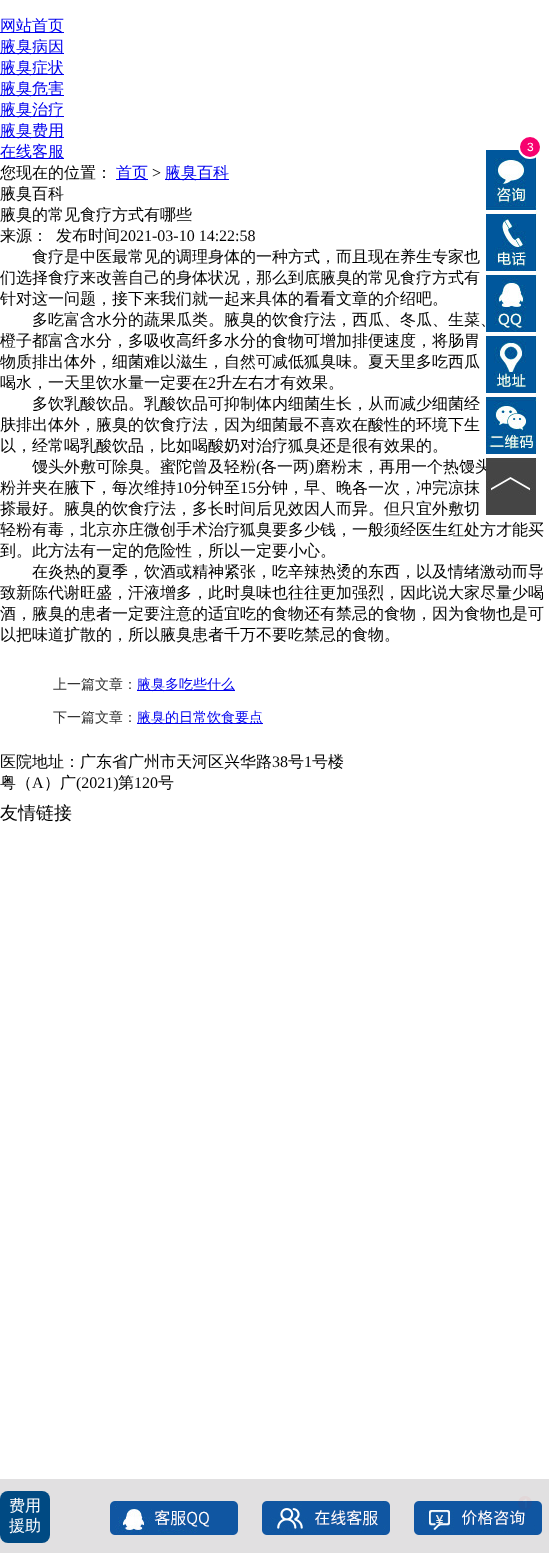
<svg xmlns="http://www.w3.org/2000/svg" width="549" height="1553">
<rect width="100%" height="100%" fill="#fff"/>
<rect y="32" width="64" height="1" fill="#00e"/>
<text x="0" y="31" style="font-family:WenQuanYi Zen Hei;font-size:16px;font-weight:500;fill:#00e">网站首页</text>
<rect y="53" width="64" height="1" fill="#00e"/>
<text x="0" y="52" style="font-family:WenQuanYi Zen Hei;font-size:16px;font-weight:500;fill:#00e">腋臭病因</text>
<rect y="74" width="64" height="1" fill="#00e"/>
<text x="0" y="73" style="font-family:WenQuanYi Zen Hei;font-size:16px;font-weight:500;fill:#00e">腋臭症状</text>
<rect y="95" width="64" height="1" fill="#00e"/>
<text x="0" y="94" style="font-family:WenQuanYi Zen Hei;font-size:16px;font-weight:500;fill:#00e">腋臭危害</text>
<rect y="116" width="64" height="1" fill="#00e"/>
<text x="0" y="115" style="font-family:WenQuanYi Zen Hei;font-size:16px;font-weight:500;fill:#00e">腋臭治疗</text>
<rect y="137" width="64" height="1" fill="#00e"/>
<text x="0" y="136" style="font-family:WenQuanYi Zen Hei;font-size:16px;font-weight:500;fill:#00e">腋臭费用</text>
<rect y="158" width="64" height="1" fill="#00e"/>
<text x="0" y="157" style="font-family:WenQuanYi Zen Hei;font-size:16px;font-weight:500;fill:#00e">在线客服</text>
<image x="486" y="150" width="51" height="60" href="media/1.png"/>
<circle cx="530" cy="147" r="11" fill="#f7016f" stroke="#fff" stroke-width="2"/>
<text x="527" y="151" style="font-family:Liberation Sans;font-size:12px;fill:#fff">3</text>
<image x="486" y="211" width="51" height="60" href="media/2.png"/>
<image x="486" y="272" width="51" height="60" href="media/3.png"/>
<image x="486" y="333" width="51" height="60" href="media/4.png"/>
<image x="486" y="394" width="51" height="60" href="media/5.png"/>
<text x="315" y="472" style="font-family:WenQuanYi Zen Hei;font-size:16px;font-weight:500;fill:#000">磨粉末，再用一个热馒头</text>
<image x="486" y="458" width="51" height="57" href="media/6.png"/>
<text x="0" y="178" style="font-family:WenQuanYi Zen Hei;font-size:16px;font-weight:500;fill:#000">您现在的位置：</text>
<rect x="116" y="179" width="32" height="1" fill="#00e"/>
<text x="116" y="178" style="font-family:WenQuanYi Zen Hei;font-size:16px;font-weight:500;fill:#00e">首页</text>
<text x="152" y="178" style="font-family:Liberation Serif;font-size:16px;fill:#000">&gt;</text>
<rect x="165" y="179" width="64" height="1" fill="#00e"/>
<text x="165" y="178" style="font-family:WenQuanYi Zen Hei;font-size:16px;font-weight:500;fill:#00e">腋臭百科</text>
<text x="0" y="199" style="font-family:WenQuanYi Zen Hei;font-size:16px;font-weight:500;fill:#000">腋臭百科</text>
<text x="0" y="220" style="font-family:WenQuanYi Zen Hei;font-size:16px;font-weight:500;fill:#000">腋臭的常见食疗方式有哪些</text>
<text x="0" y="241" style="font-family:WenQuanYi Zen Hei;font-size:16px;font-weight:500;fill:#000">来源：</text>
<text x="56" y="241" style="font-family:WenQuanYi Zen Hei;font-size:16px;font-weight:500;fill:#000">发布时间</text>
<text x="120" y="241" style="font-family:Liberation Serif;font-size:16px;fill:#000">2021-03-10 14:22:58</text>
<text x="32" y="262" style="font-family:WenQuanYi Zen Hei;font-size:16px;font-weight:500;fill:#000">食疗是中医最常见的调理身体的一种方式，而且现在养生专家也</text>
<text x="0" y="283" style="font-family:WenQuanYi Zen Hei;font-size:16px;font-weight:500;fill:#000">们选择食疗来改善自己的身体状况，那么到底腋臭的常见食疗方式有</text>
<text x="0" y="304" style="font-family:WenQuanYi Zen Hei;font-size:16px;font-weight:500;fill:#000">针对这一问题，接下来我们就一起来具体的看看文章的介绍吧。</text>
<text x="32" y="325" style="font-family:WenQuanYi Zen Hei;font-size:16px;font-weight:500;fill:#000">多吃富含水分的蔬果瓜类。腋臭的饮食疗法，西瓜、冬瓜、生菜、</text>
<text x="0" y="346" style="font-family:WenQuanYi Zen Hei;font-size:16px;font-weight:500;fill:#000">橙子都富含水分，多吸收高纤多水分的食物可增加排便速度，将肠胃</text>
<text x="0" y="367" style="font-family:WenQuanYi Zen Hei;font-size:16px;font-weight:500;fill:#000">物质排出体外，细菌难以滋生，自然可减低狐臭味。夏天里多吃西瓜</text>
<text x="0" y="388" style="font-family:WenQuanYi Zen Hei;font-size:16px;font-weight:500;fill:#000">喝水，一天里饮水量一定要在</text>
<text x="208" y="388" style="font-family:Liberation Serif;font-size:16px;fill:#000">2</text>
<text x="216" y="388" style="font-family:WenQuanYi Zen Hei;font-size:16px;font-weight:500;fill:#000">升左右才有效果。</text>
<text x="32" y="409" style="font-family:WenQuanYi Zen Hei;font-size:16px;font-weight:500;fill:#000">多饮乳酸饮品。乳酸饮品可抑制体内细菌生长，从而减少细菌经</text>
<text x="0" y="430" style="font-family:WenQuanYi Zen Hei;font-size:16px;font-weight:500;fill:#000">肤排出体外，腋臭的饮食疗法，因为细菌最不喜欢在酸性的环境下生</text>
<text x="0" y="451" style="font-family:WenQuanYi Zen Hei;font-size:16px;font-weight:500;fill:#000">以，经常喝乳酸饮品，比如喝酸奶对治疗狐臭还是很有效果的。</text>
<text x="32" y="472" style="font-family:WenQuanYi Zen Hei;font-size:16px;font-weight:500;fill:#000">馒头外敷可除臭。蜜陀曾及轻粉</text>
<text x="256" y="472" style="font-family:Liberation Serif;font-size:16px;fill:#000">(</text>
<text x="261" y="472" style="font-family:WenQuanYi Zen Hei;font-size:16px;font-weight:500;fill:#000">各一两</text>
<text x="309" y="472" style="font-family:Liberation Serif;font-size:16px;fill:#000">)</text>
<text x="0" y="493" style="font-family:WenQuanYi Zen Hei;font-size:16px;font-weight:500;fill:#000">粉并夹在腋下，每次维持</text>
<text x="176" y="493" style="font-family:Liberation Serif;font-size:16px;fill:#000">10</text>
<text x="192" y="493" style="font-family:WenQuanYi Zen Hei;font-size:16px;font-weight:500;fill:#000">分钟至</text>
<text x="240" y="493" style="font-family:Liberation Serif;font-size:16px;fill:#000">15</text>
<text x="256" y="493" style="font-family:WenQuanYi Zen Hei;font-size:16px;font-weight:500;fill:#000">分钟，早、晚各一次，冲完凉抹</text>
<text x="0" y="514" style="font-family:WenQuanYi Zen Hei;font-size:16px;font-weight:500;fill:#000">搽最好。腋臭的饮食疗法，多长时间后见效因人而异。但只宜外敷切</text>
<text x="0" y="535" style="font-family:WenQuanYi Zen Hei;font-size:16px;font-weight:500;fill:#000">轻粉有毒，北京亦庄微创手术治疗狐臭要多少钱，一般须经医生红处方才能买</text>
<text x="0" y="556" style="font-family:WenQuanYi Zen Hei;font-size:16px;font-weight:500;fill:#000">到。此方法有一定的危险性，所以一定要小心。</text>
<text x="32" y="577" style="font-family:WenQuanYi Zen Hei;font-size:16px;font-weight:500;fill:#000">在炎热的夏季，饮酒或精神紧张，吃辛辣热烫的东西，以及情绪激动而导</text>
<text x="0" y="598" style="font-family:WenQuanYi Zen Hei;font-size:16px;font-weight:500;fill:#000">致新陈代谢旺盛，汗液增多，此时臭味也往往更加强烈，因此说大家尽量少喝</text>
<text x="0" y="619" style="font-family:WenQuanYi Zen Hei;font-size:16px;font-weight:500;fill:#000">酒，腋臭的患者一定要注意的适宜吃的食物还有禁忌的食物，因为食物也是可</text>
<text x="0" y="640" style="font-family:WenQuanYi Zen Hei;font-size:16px;font-weight:500;fill:#000">以把味道扩散的，所以腋臭患者千万不要吃禁忌的食物。</text>
<text x="53" y="689" style="font-family:WenQuanYi Zen Hei;font-size:14px;font-weight:500;fill:#333">上一篇文章：</text>
<rect x="137" y="690" width="98" height="1" fill="#00e"/>
<text x="137" y="689" style="font-family:WenQuanYi Zen Hei;font-size:14px;font-weight:500;fill:#00e">腋臭多吃些什么</text>
<text x="53" y="722" style="font-family:WenQuanYi Zen Hei;font-size:14px;font-weight:500;fill:#333">下一篇文章：</text>
<rect x="137" y="723" width="126" height="1" fill="#00e"/>
<text x="137" y="722" style="font-family:WenQuanYi Zen Hei;font-size:14px;font-weight:500;fill:#00e">腋臭的日常饮食要点</text>
<text x="0" y="767" style="font-family:WenQuanYi Zen Hei;font-size:16px;font-weight:500;fill:#000">医院地址：广东省广州市天河区兴华路</text>
<text x="272" y="767" style="font-family:Liberation Serif;font-size:16px;fill:#000">38</text>
<text x="288" y="767" style="font-family:WenQuanYi Zen Hei;font-size:16px;font-weight:500;fill:#000">号</text>
<text x="304" y="767" style="font-family:Liberation Serif;font-size:16px;fill:#000">1</text>
<text x="312" y="767" style="font-family:WenQuanYi Zen Hei;font-size:16px;font-weight:500;fill:#000">号楼</text>
<text x="0" y="788" style="font-family:WenQuanYi Zen Hei;font-size:16px;font-weight:500;fill:#000">粤（</text>
<text x="32" y="788" style="font-family:Liberation Serif;font-size:16px;fill:#000">A</text>
<text x="44" y="788" style="font-family:WenQuanYi Zen Hei;font-size:16px;font-weight:500;fill:#000">）广</text>
<text x="76" y="788" style="font-family:Liberation Serif;font-size:16px;fill:#000">(2021)</text>
<text x="118" y="788" style="font-family:WenQuanYi Zen Hei;font-size:16px;font-weight:500;fill:#000">第</text>
<text x="134" y="788" style="font-family:Liberation Serif;font-size:16px;fill:#000">120</text>
<text x="158" y="788" style="font-family:WenQuanYi Zen Hei;font-size:16px;font-weight:500;fill:#000">号</text>
<text x="0" y="819" style="font-family:WenQuanYi Zen Hei;font-size:18px;font-weight:500;fill:#000">友情链接</text>
<rect y="1479" width="549" height="74" fill="#e1e0e1"/>
<rect y="1491" width="50" height="52" rx="8" fill="#004a83"/>
<text x="9" y="1511" style="font-family:WenQuanYi Zen Hei;font-size:16px;font-weight:500;fill:#fff">费用</text>
<text x="9" y="1531" style="font-family:WenQuanYi Zen Hei;font-size:16px;font-weight:500;fill:#fff">援助</text>
<image x="110" y="1501" width="128" height="34" href="media/7.png"/>
<image x="262" y="1501" width="128" height="34" href="media/8.png"/>
<image x="414" y="1501" width="128" height="34" href="media/10.png"/>
<image x="518" y="1496" width="14" height="14" href="media/9.png"/>
</svg>
